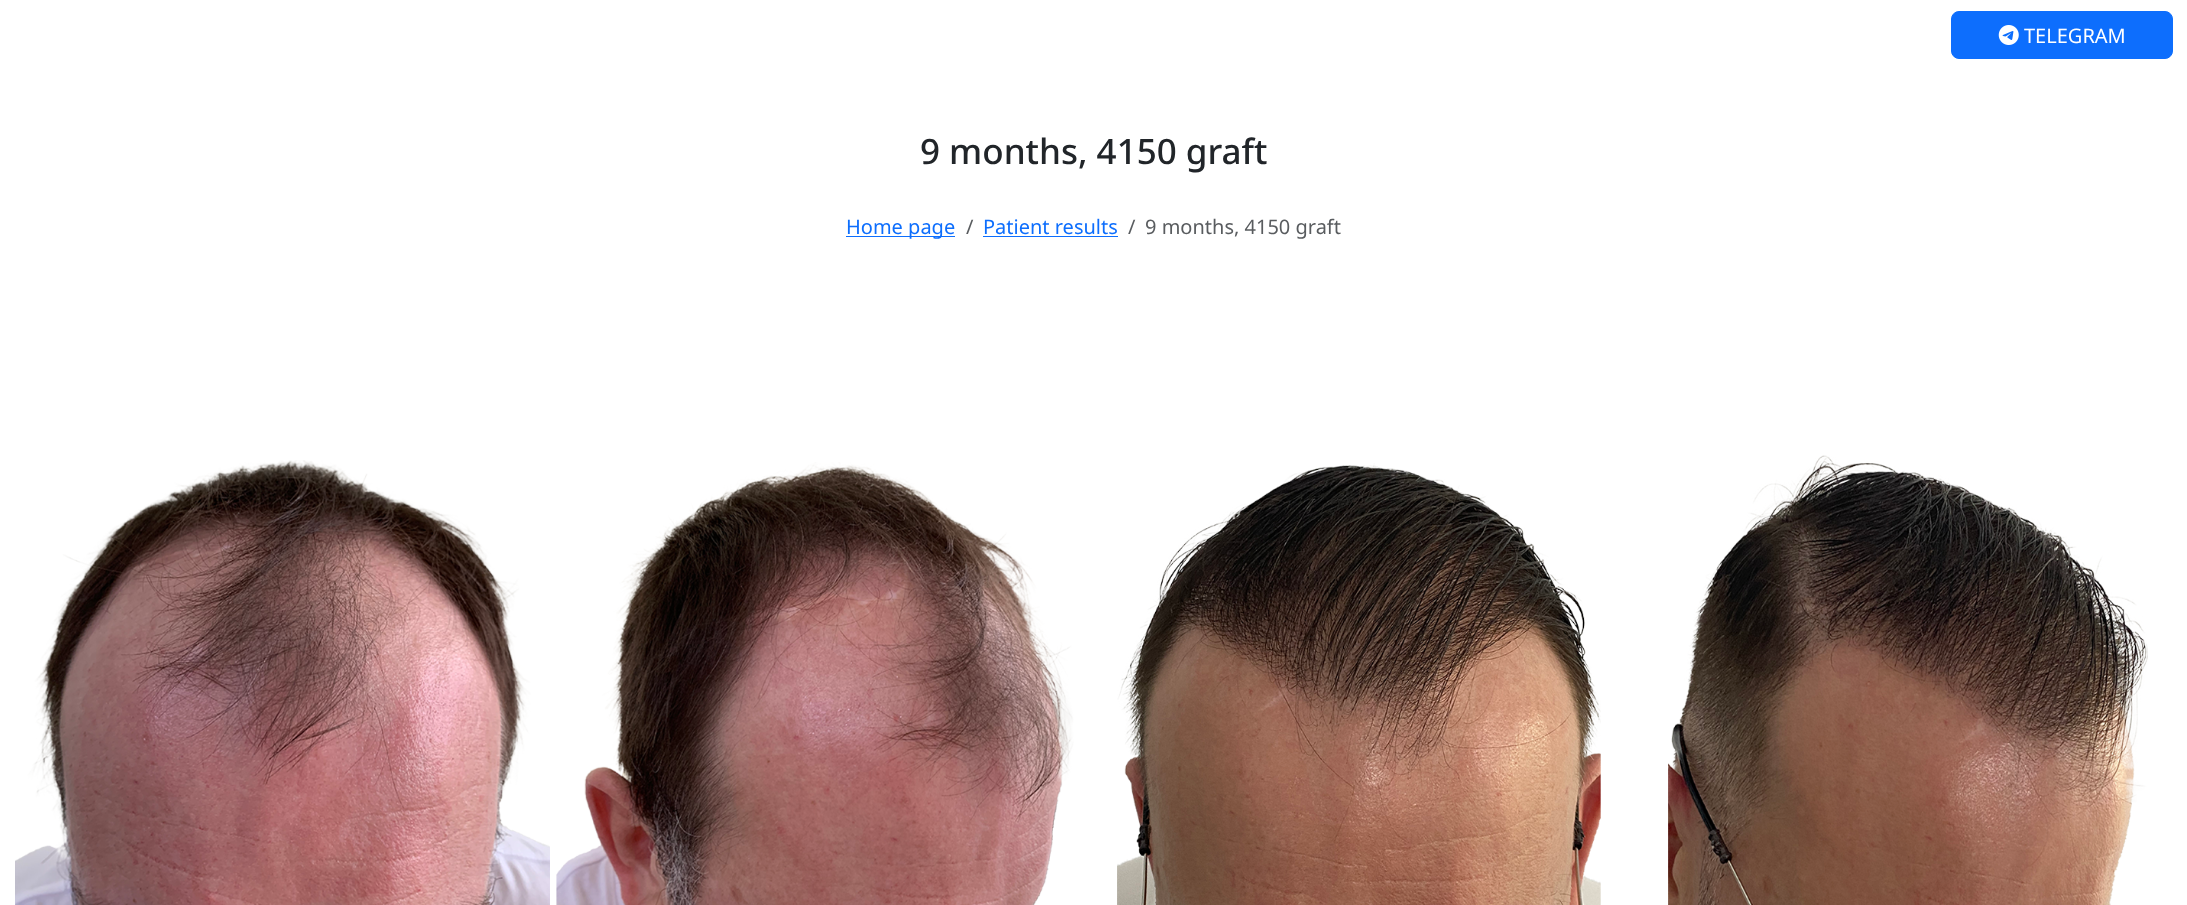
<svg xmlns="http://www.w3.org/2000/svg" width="2187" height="905">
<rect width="100%" height="100%" fill="#fff"/>
<rect x="1951.5" y="11.5" width="221" height="47" rx="7.5" fill="#0d6efd" stroke="#0d6efd"/>
<image x="1998" y="25" width="21" height="20" href="media/1.png"/>
<text x="2024" y="43" style="font-family:Noto Sans;font-size:20px;fill:#fff">TELEGRAM</text>
<text x="920" y="164" style="font-family:Noto Sans;font-size:35px;font-weight:500;fill:#212529">9 months, 4150 graft</text>
<rect x="846" y="236" width="109" height="1" fill="#0d6efd"/>
<text x="846" y="234" style="font-family:Noto Sans;font-size:20px;fill:#0d6efd">Home page</text>
<text x="966" y="234" style="font-family:Noto Sans;font-size:20px;fill:#595c5f">/</text>
<text x="983" y="234" style="font-family:Noto Sans;font-size:20px;fill:#0d6efd">Patient results</text>
<rect x="983" y="236" width="135" height="1" fill="#0d6efd"/>
<text x="1128" y="234" style="font-family:Noto Sans;font-size:20px;fill:#595c5f">/</text>
<text x="1145" y="234" style="font-family:Noto Sans;font-size:20px;fill:#595c5f">9 months, 4150 graft</text>
<image x="15" y="460" width="535" height="445" href="media/2.png"/>
<image x="556" y="462" width="518" height="443" href="media/3.png"/>
<image x="1117" y="463" width="484" height="442" href="media/4.png"/>
<image x="1668" y="455" width="480" height="450" href="media/5.png"/>
</svg>
